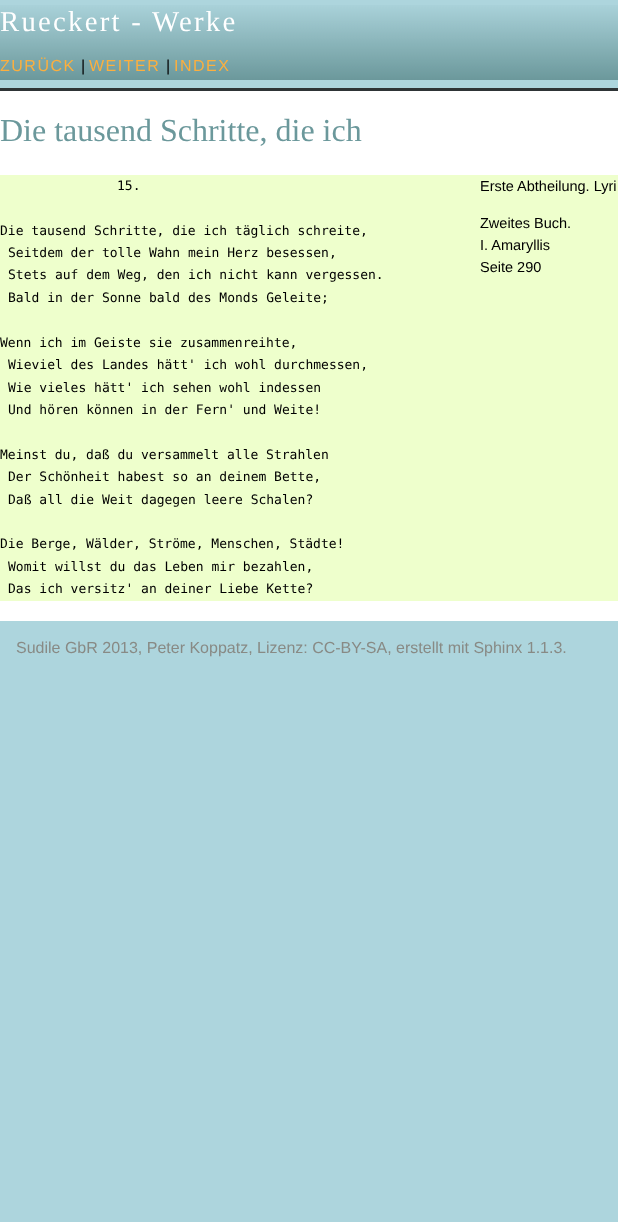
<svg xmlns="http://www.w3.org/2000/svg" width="618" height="1222">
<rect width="100%" height="100%" fill="#add5dd"/>
<image x="0" y="5" width="618" height="75" href="media/1.png"/>
<rect y="88" width="618" height="3" fill="#2e3436"/>
<text x="0" y="31" style="font-family:Liberation Serif;font-size:28.75px;letter-spacing:2.25px;fill:#fff">Rueckert - Werke</text>
<text x="0" y="71" style="font-family:Liberation Sans;font-size:16px;letter-spacing:1.5px;fill:#fcaf3e">ZURÜCK</text>
<text x="81" y="71" style="font-family:Liberation Sans;font-size:16px;fill:#000">|</text>
<text x="89" y="71" style="font-family:Liberation Sans;font-size:16px;letter-spacing:1.5px;fill:#fcaf3e">WEITER</text>
<text x="166" y="71" style="font-family:Liberation Sans;font-size:16px;fill:#000">|</text>
<text x="174" y="71" style="font-family:Liberation Sans;font-size:16px;letter-spacing:1.5px;fill:#fcaf3e">INDEX</text>
<rect y="91" width="618" height="530" fill="#fff"/>
<text x="0" y="141" style="font-family:Liberation Serif;font-size:32px;fill:#6b989b">Die tausend Schritte, die ich</text>
<rect y="175" width="618" height="426" fill="#efc"/>
<text x="117" y="190" style="font-family:DejaVu Sans Mono;font-size:13px;fill:#000">15.</text>
<text x="0" y="235" style="font-family:DejaVu Sans Mono;font-size:13px;fill:#000">Die tausend Schritte, die ich täglich schreite,</text>
<text x="8" y="257" style="font-family:DejaVu Sans Mono;font-size:13px;fill:#000">Seitdem der tolle Wahn mein Herz besessen,</text>
<text x="8" y="279" style="font-family:DejaVu Sans Mono;font-size:13px;fill:#000">Stets auf dem Weg, den ich nicht kann vergessen.</text>
<text x="8" y="302" style="font-family:DejaVu Sans Mono;font-size:13px;fill:#000">Bald in der Sonne bald des Monds Geleite;</text>
<text x="0" y="347" style="font-family:DejaVu Sans Mono;font-size:13px;fill:#000">Wenn ich im Geiste sie zusammenreihte,</text>
<text x="8" y="369" style="font-family:DejaVu Sans Mono;font-size:13px;fill:#000">Wieviel des Landes hätt' ich wohl durchmessen,</text>
<text x="8" y="392" style="font-family:DejaVu Sans Mono;font-size:13px;fill:#000">Wie vieles hätt' ich sehen wohl indessen</text>
<text x="8" y="414" style="font-family:DejaVu Sans Mono;font-size:13px;fill:#000">Und hören können in der Fern' und Weite!</text>
<text x="0" y="459" style="font-family:DejaVu Sans Mono;font-size:13px;fill:#000">Meinst du, daß du versammelt alle Strahlen</text>
<text x="8" y="481" style="font-family:DejaVu Sans Mono;font-size:13px;fill:#000">Der Schönheit habest so an deinem Bette,</text>
<text x="8" y="504" style="font-family:DejaVu Sans Mono;font-size:13px;fill:#000">Daß all die Weit dagegen leere Schalen?</text>
<text x="0" y="548" style="font-family:DejaVu Sans Mono;font-size:13px;fill:#000">Die Berge, Wälder, Ströme, Menschen, Städte!</text>
<text x="8" y="571" style="font-family:DejaVu Sans Mono;font-size:13px;fill:#000">Womit willst du das Leben mir bezahlen,</text>
<text x="8" y="593" style="font-family:DejaVu Sans Mono;font-size:13px;fill:#000">Das ich versitz' an deiner Liebe Kette?</text>
<text x="480" y="191" style="font-family:Liberation Sans;font-size:14.5px;fill:#000">Erste Abtheilung. Lyri</text>
<text x="480" y="228" style="font-family:Liberation Sans;font-size:14.5px;fill:#000">Zweites Buch.</text>
<text x="480" y="250" style="font-family:Liberation Sans;font-size:14.5px;fill:#000">I. Amaryllis</text>
<text x="480" y="272" style="font-family:Liberation Sans;font-size:14.5px;fill:#000">Seite 290</text>
<text x="16" y="653" style="font-family:Liberation Sans;font-size:16px;fill:#888a85">Sudile GbR 2013, Peter Koppatz, Lizenz: CC-BY-SA, erstellt mit Sphinx 1.1.3.</text>
</svg>
